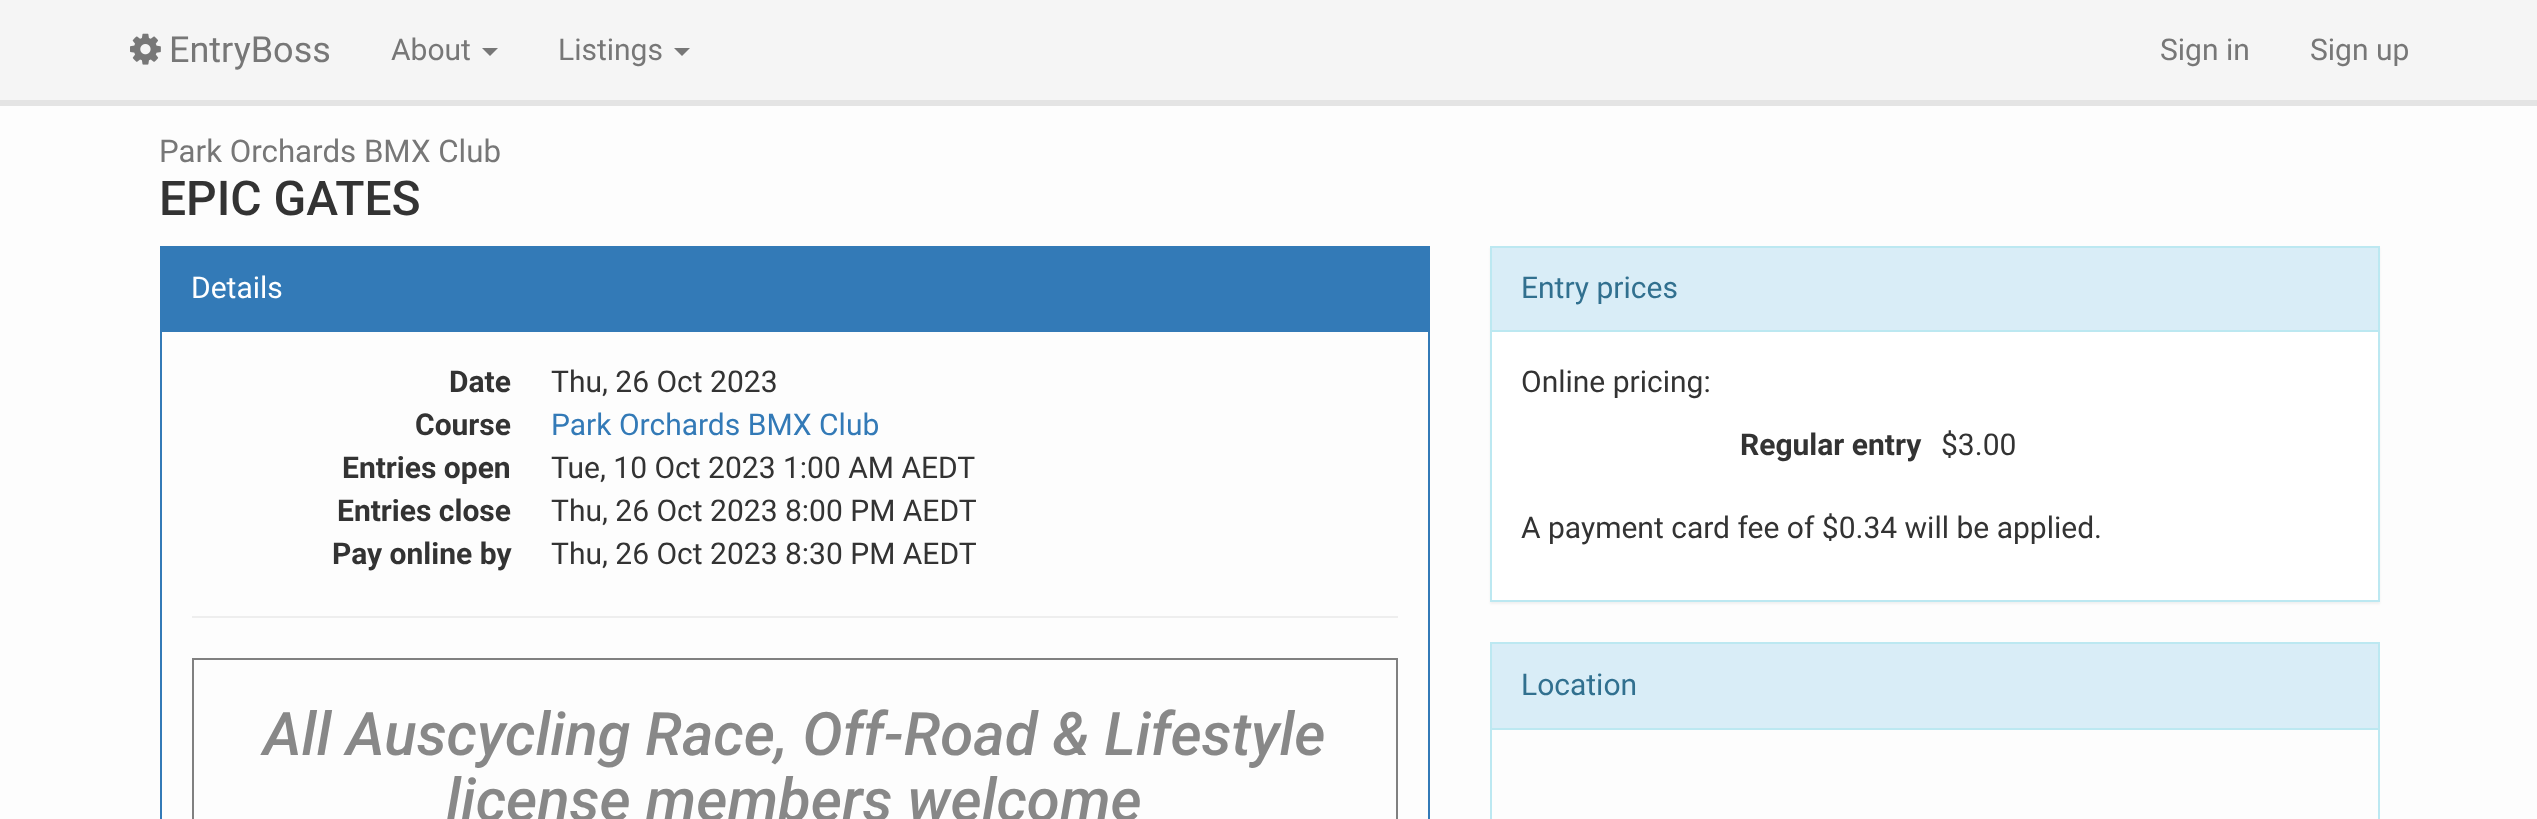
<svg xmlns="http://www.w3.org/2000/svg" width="2537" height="819">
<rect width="100%" height="100%" fill="#fdfdfd"/>
<rect width="2537" height="100" fill="#f5f5f5"/>
<rect y="100" width="2537" height="6" fill="#e4e4e4"/>
<image x="130" y="33" width="31" height="32" href="media/1.png"/>
<text x="169" y="62" style="font-family:Roboto;font-size:36px;fill:#777">EntryBoss</text>
<text x="391" y="60" style="font-family:Roboto;font-size:30px;fill:#777">About</text>
<path d="M482 48h16l-8 8z" fill="#777"/>
<text x="558" y="60" style="font-family:Roboto;font-size:30px;fill:#777">Listings</text>
<path d="M674 48h16l-8 8z" fill="#777"/>
<text x="2160" y="60" style="font-family:Roboto;font-size:30px;fill:#777">Sign in</text>
<text x="2310" y="60" style="font-family:Roboto;font-size:30px;fill:#777">Sign up</text>
<text x="159" y="162" style="font-family:Roboto;font-size:31.25px;fill:#777">Park Orchards BMX Club</text>
<text x="159" y="215" style="font-family:Roboto;font-size:48px;font-weight:500;fill:#333">EPIC GATES</text>
<rect x="161" y="247" width="1268" height="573" fill="none" stroke="#337ab7" stroke-width="2"/>
<rect x="162" y="248" width="1266" height="84" fill="#337ab7"/>
<text x="191" y="298" style="font-family:Roboto;font-size:30px;fill:#fff">Details</text>
<text x="449" y="392" style="font-family:Roboto;font-size:30px;font-weight:bold;fill:#333">Date</text>
<text x="551" y="392" style="font-family:Roboto;font-size:30px;fill:#333">Thu, 26 Oct 2023</text>
<text x="415" y="435" style="font-family:Roboto;font-size:30px;font-weight:bold;fill:#333">Course</text>
<text x="551" y="435" style="font-family:Roboto;font-size:30px;fill:#337ab7">Park Orchards BMX Club</text>
<text x="342" y="478" style="font-family:Roboto;font-size:30px;font-weight:bold;fill:#333">Entries open</text>
<text x="551" y="478" style="font-family:Roboto;font-size:30px;fill:#333">Tue, 10 Oct 2023 1:00 AM AEDT</text>
<text x="337" y="521" style="font-family:Roboto;font-size:30px;font-weight:bold;fill:#333">Entries close</text>
<text x="551" y="521" style="font-family:Roboto;font-size:30px;fill:#333">Thu, 26 Oct 2023 8:00 PM AEDT</text>
<text x="332" y="564" style="font-family:Roboto;font-size:30px;font-weight:bold;fill:#333">Pay online by</text>
<text x="551" y="564" style="font-family:Roboto;font-size:30px;fill:#333">Thu, 26 Oct 2023 8:30 PM AEDT</text>
<rect x="192" y="616" width="1206" height="2" fill="#eee"/>
<rect x="193" y="659" width="1204" height="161" fill="none" stroke="#808080" stroke-width="2"/>
<text x="263" y="755" style="font-family:Roboto;font-size:60px;font-weight:500;font-style:italic;fill:#888">All Auscycling Race, Off-Road &amp; Lifestyle</text>
<text x="446" y="821" style="font-family:Roboto;font-size:60px;font-weight:500;font-style:italic;fill:#888">license members welcome</text>
<rect x="1490" y="248" width="890" height="356" fill="#0000000d" filter="blur(1px)"/>
<rect x="1492" y="332" width="886" height="268" fill="#fff"/>
<rect x="1491" y="247" width="888" height="354" fill="none" stroke="#bce8f1" stroke-width="2"/>
<rect x="1492" y="248" width="886" height="82" fill="#d9edf7"/>
<rect x="1492" y="330" width="886" height="2" fill="#bce8f1"/>
<text x="1521" y="298" style="font-family:Roboto;font-size:30px;fill:#31708f">Entry prices</text>
<text x="1521" y="392" style="font-family:Roboto;font-size:30px;fill:#333">Online pricing:</text>
<text x="1740" y="455" style="font-family:Roboto;font-size:30px;font-weight:bold;fill:#333">Regular entry</text>
<text x="1941" y="455" style="font-family:Roboto;font-size:30px;fill:#333">$3.00</text>
<text x="1521" y="538" style="font-family:Roboto;font-size:30px;fill:#333">A payment card fee of $0.34 will be applied.</text>
<rect x="1491" y="643" width="888" height="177" fill="none" stroke="#bce8f1" stroke-width="2"/>
<rect x="1492" y="644" width="886" height="84" fill="#d9edf7"/>
<rect x="1492" y="728" width="886" height="2" fill="#bce8f1"/>
<text x="1521" y="695" style="font-family:Roboto;font-size:30px;fill:#31708f">Location</text>
</svg>
